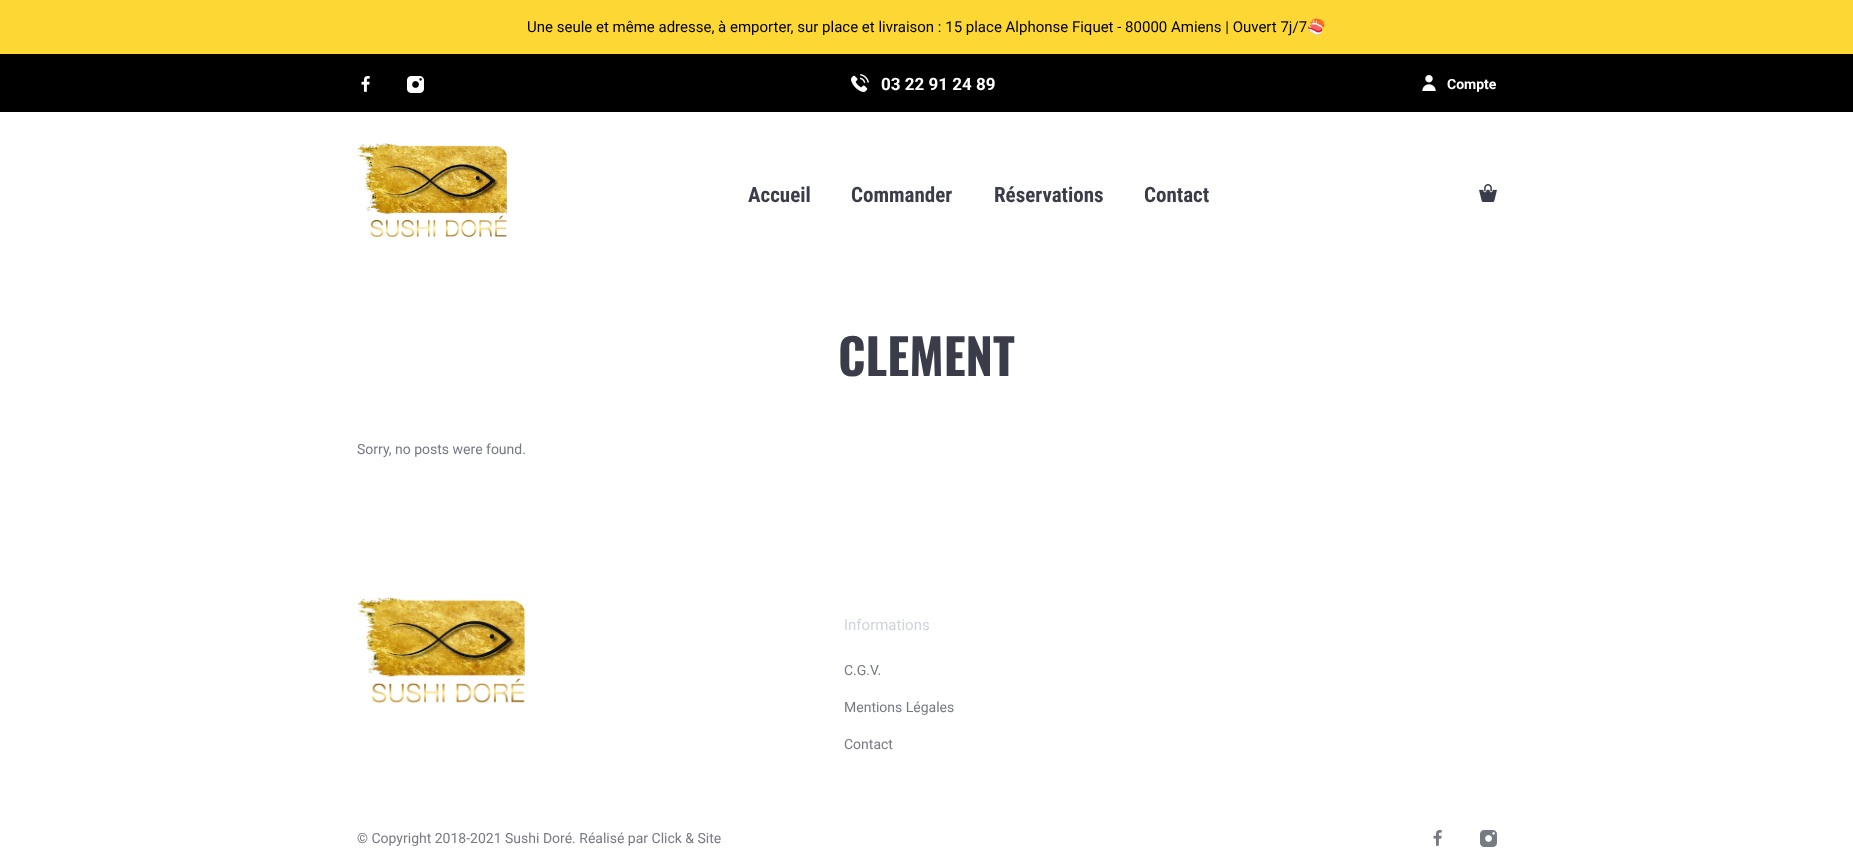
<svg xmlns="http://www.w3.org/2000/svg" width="1853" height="863">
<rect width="100%" height="100%" fill="#fff"/>
<rect width="1853" height="54" fill="#fdd835"/>
<text x="527" y="32" style="font-family:Roboto;font-size:15px;fill:#000">Une seule et même adresse, à emporter, sur place et livraison : 15 place Alphonse Fiquet - 80000 Amiens | Ouvert 7j/7</text>
<text x="1307" y="32" style="font-family:Noto Color Emoji;font-size:15px;fill:#000">🍣</text>
<rect y="54" width="1853" height="58" fill="#000"/>
<image x="361" y="76" width="9" height="16" href="media/1.png"/>
<image x="407" y="76" width="17" height="17" href="media/2.png"/>
<image x="851" y="74" width="18" height="18" href="media/3.png"/>
<text x="881" y="90" style="font-family:Roboto;font-size:17px;font-weight:bold;fill:#fff">03 22 91 24 89</text>
<image x="1422" y="75" width="14" height="16" href="media/4.png"/>
<text x="1447" y="89" style="font-family:Roboto;font-size:14px;font-weight:bold;fill:#fff">Compte</text>
<image x="357" y="142" width="151" height="95" href="media/5.png"/>
<text x="748" y="202" style="font-family:Roboto Condensed;font-size:21px;font-weight:bold;fill:#3a3d49">Accueil</text>
<text x="851" y="202" style="font-family:Roboto Condensed;font-size:21px;font-weight:bold;fill:#3a3d49">Commander</text>
<text x="994" y="202" style="font-family:Roboto Condensed;font-size:21px;font-weight:bold;fill:#3a3d49">Réservations</text>
<text x="1144" y="202" style="font-family:Roboto Condensed;font-size:21px;font-weight:bold;fill:#3a3d49">Contact</text>
<image x="1479" y="184" width="18" height="18" href="media/6.png"/>
<text x="838" y="376" style="font-family:Oswald;font-size:49px;font-weight:bold;fill:#3a3d49">CLEMENT</text>
<text x="357" y="454" style="font-family:Roboto;font-size:14px;fill:#777a83">Sorry, no posts were found.</text>
<image x="357" y="597" width="169" height="107" href="media/7.png"/>
<text x="844" y="630" style="font-family:Roboto;font-size:15px;fill:#d0d4da">Informations</text>
<text x="844" y="675" style="font-family:Roboto;font-size:14px;fill:#777a83">C.G.V.</text>
<text x="844" y="712" style="font-family:Roboto;font-size:14px;fill:#777a83">Mentions Légales</text>
<text x="844" y="749" style="font-family:Roboto;font-size:14px;fill:#777a83">Contact</text>
<text x="357" y="843" style="font-family:Roboto;font-size:14px;fill:#777a83">© Copyright 2018-2021 Sushi Doré. Réalisé par Click &amp; Site</text>
<image x="1433" y="830" width="9" height="16" href="media/8.png"/>
<image x="1480" y="830" width="17" height="17" href="media/9.png"/>
</svg>
